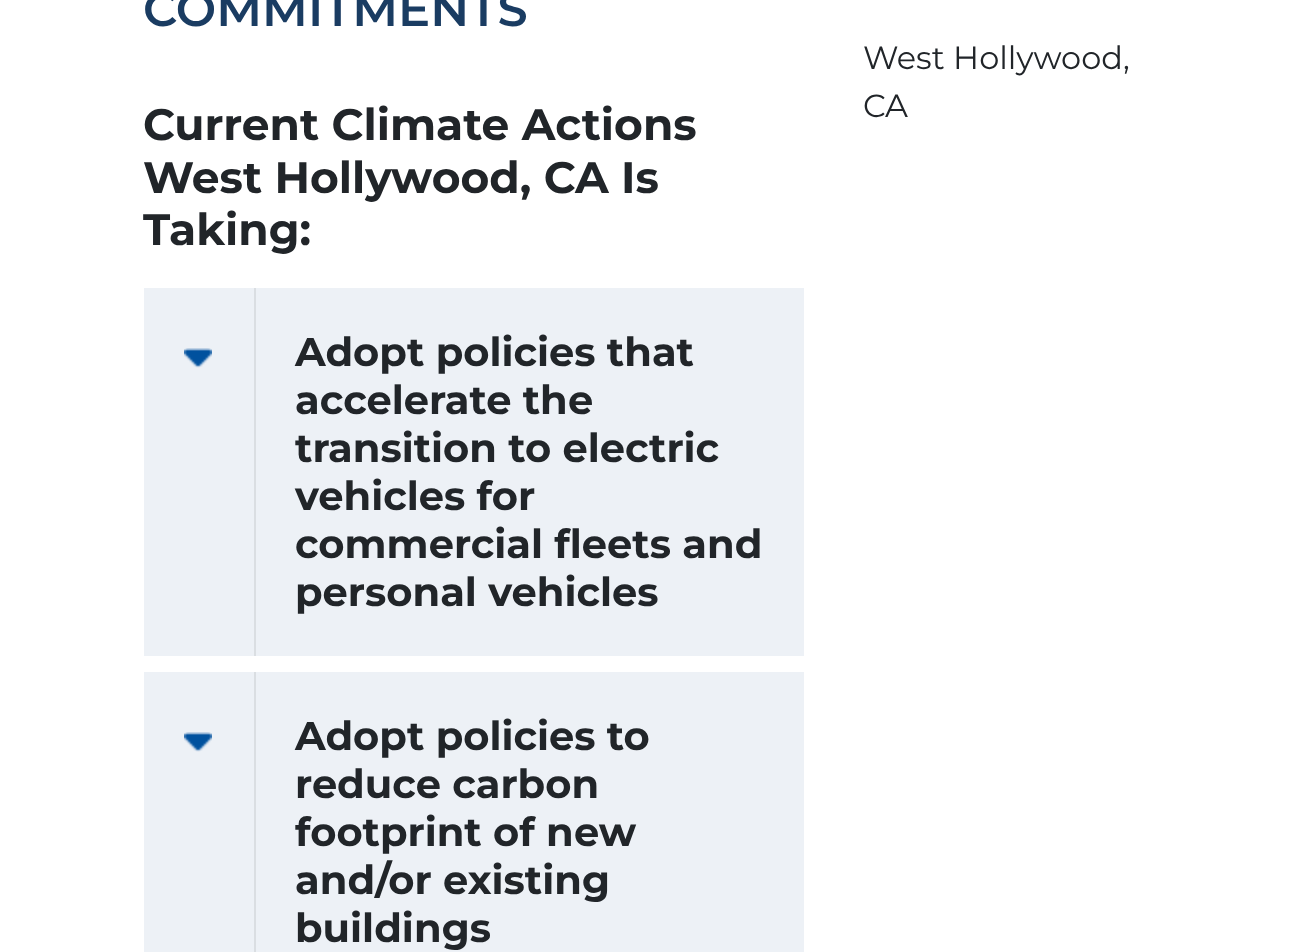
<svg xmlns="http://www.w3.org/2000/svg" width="1306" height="952">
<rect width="100%" height="100%" fill="#fff"/>
<text x="143" y="26" style="font-family:Montserrat;font-size:48px;font-weight:600;fill:#1a3c62">COMMITMENTS</text>
<text x="143" y="140" style="font-family:Montserrat;font-size:44px;font-weight:bold;fill:#212529">Current Climate Actions</text>
<text x="143" y="193" style="font-family:Montserrat;font-size:44px;font-weight:bold;fill:#212529">West Hollywood, CA Is</text>
<text x="143" y="245" style="font-family:Montserrat;font-size:44px;font-weight:bold;fill:#212529">Taking:</text>
<rect x="144" y="288" width="660" height="368" fill="#edf1f6"/>
<image x="184" y="348" width="28" height="20" href="media/1.png"/>
<rect x="254" y="288" width="2" height="368" fill="#dadee2"/>
<text x="295" y="366" style="font-family:Montserrat;font-size:40px;font-weight:bold;fill:#212529">Adopt policies that</text>
<text x="295" y="414" style="font-family:Montserrat;font-size:40px;font-weight:bold;fill:#212529">accelerate the</text>
<text x="295" y="462" style="font-family:Montserrat;font-size:40px;font-weight:bold;fill:#212529">transition to electric</text>
<text x="295" y="510" style="font-family:Montserrat;font-size:40px;font-weight:bold;fill:#212529">vehicles for</text>
<text x="295" y="558" style="font-family:Montserrat;font-size:40px;font-weight:bold;fill:#212529">commercial fleets and</text>
<text x="295" y="606" style="font-family:Montserrat;font-size:40px;font-weight:bold;fill:#212529">personal vehicles</text>
<rect x="144" y="672" width="660" height="280" fill="#edf1f6"/>
<image x="184" y="732" width="28" height="20" href="media/1.png"/>
<rect x="254" y="672" width="2" height="280" fill="#dadee2"/>
<text x="295" y="750" style="font-family:Montserrat;font-size:40px;font-weight:bold;fill:#212529">Adopt policies to</text>
<text x="295" y="798" style="font-family:Montserrat;font-size:40px;font-weight:bold;fill:#212529">reduce carbon</text>
<text x="295" y="846" style="font-family:Montserrat;font-size:40px;font-weight:bold;fill:#212529">footprint of new</text>
<text x="295" y="894" style="font-family:Montserrat;font-size:40px;font-weight:bold;fill:#212529">and/or existing</text>
<text x="295" y="942" style="font-family:Montserrat;font-size:40px;font-weight:bold;fill:#212529">buildings</text>
<text x="863" y="69" style="font-family:Montserrat;font-size:32px;fill:#212529">West Hollywood,</text>
<text x="863" y="117" style="font-family:Montserrat;font-size:32px;fill:#212529">CA</text>
</svg>
